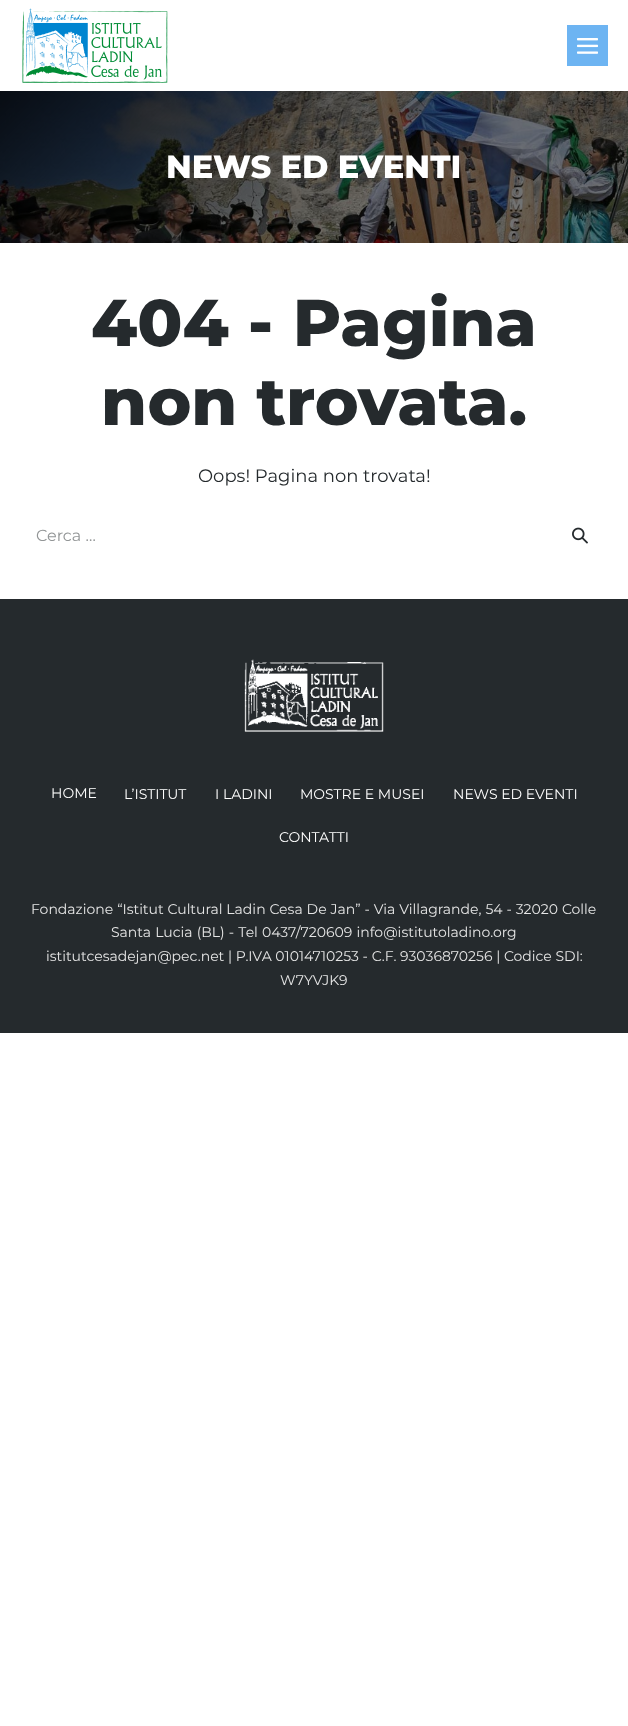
<svg xmlns="http://www.w3.org/2000/svg" width="628" height="1726">
<rect width="100%" height="100%" fill="#fff"/>
<image x="22" y="8" width="146" height="75" href="media/1.png"/>
<rect x="567" y="25" width="41" height="41" fill="#6db4f2"/>
<image x="577" y="38" width="21" height="16" href="media/2.png"/>
<image x="0" y="91" width="628" height="152" href="media/3.png"/>
<text x="166" y="178" style="font-family:Montserrat;font-size:32px;font-weight:100;fill:#fff">NEWS ED EVENTI</text>
<text x="91" y="346" style="font-family:Montserrat;font-size:66px;font-weight:100;fill:#252a2d">404 - Pagina</text>
<text x="101" y="425" style="font-family:Montserrat;font-size:66px;font-weight:100;fill:#252a2d">non trovata.</text>
<text x="198" y="482" style="font-family:'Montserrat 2';font-size:18px;font-weight:100;fill:#252a2d">Oops! Pagina non trovata!</text>
<text x="36" y="541" style="font-family:'Montserrat 2';font-size:16px;font-weight:100;fill:#929596">Cerca …</text>
<image x="572" y="527" width="16" height="17" href="media/4.png"/>
<rect y="599" width="628" height="434" fill="#252a2d"/>
<image x="244" y="659" width="140" height="73" href="media/5.png"/>
<text x="51" y="798" style="font-family:'Montserrat 2';font-size:14px;font-weight:100;fill:#fff">HOME</text>
<text x="124" y="799" style="font-family:'Montserrat 2';font-size:14px;font-weight:100;fill:#fff">L’ISTITUT</text>
<text x="215" y="799" style="font-family:'Montserrat 2';font-size:14px;font-weight:100;fill:#fff">I LADINI</text>
<text x="300" y="799" style="font-family:'Montserrat 2';font-size:14px;font-weight:100;fill:#fff">MOSTRE E MUSEI</text>
<text x="453" y="799" style="font-family:'Montserrat 2';font-size:14px;font-weight:100;fill:#fff">NEWS ED EVENTI</text>
<text x="279" y="842" style="font-family:'Montserrat 2';font-size:14px;font-weight:100;fill:#fff">CONTATTI</text>
<text x="31" y="914" word-spacing="0.25" style="font-family:'Montserrat 2';font-size:14px;font-weight:100;fill:#e6e6e6">Fondazione “Istitut Cultural Ladin Cesa De Jan” - Via Villagrande, 54 - 32020 Colle</text>
<text x="111" y="937" word-spacing="0.5" style="font-family:'Montserrat 2';font-size:14px;font-weight:100;fill:#e6e6e6">Santa Lucia (BL) - Tel 0437/720609 info@istitutoladino.org</text>
<text x="46" y="961" style="font-family:'Montserrat 2';font-size:14px;font-weight:100;fill:#e6e6e6">istitutcesadejan@pec.net | P.IVA 01014710253 - C.F. 93036870256 | Codice SDI:</text>
<text x="280" y="985" style="font-family:'Montserrat 2';font-size:14px;font-weight:100;fill:#e6e6e6">W7YVJK9</text>
</svg>
